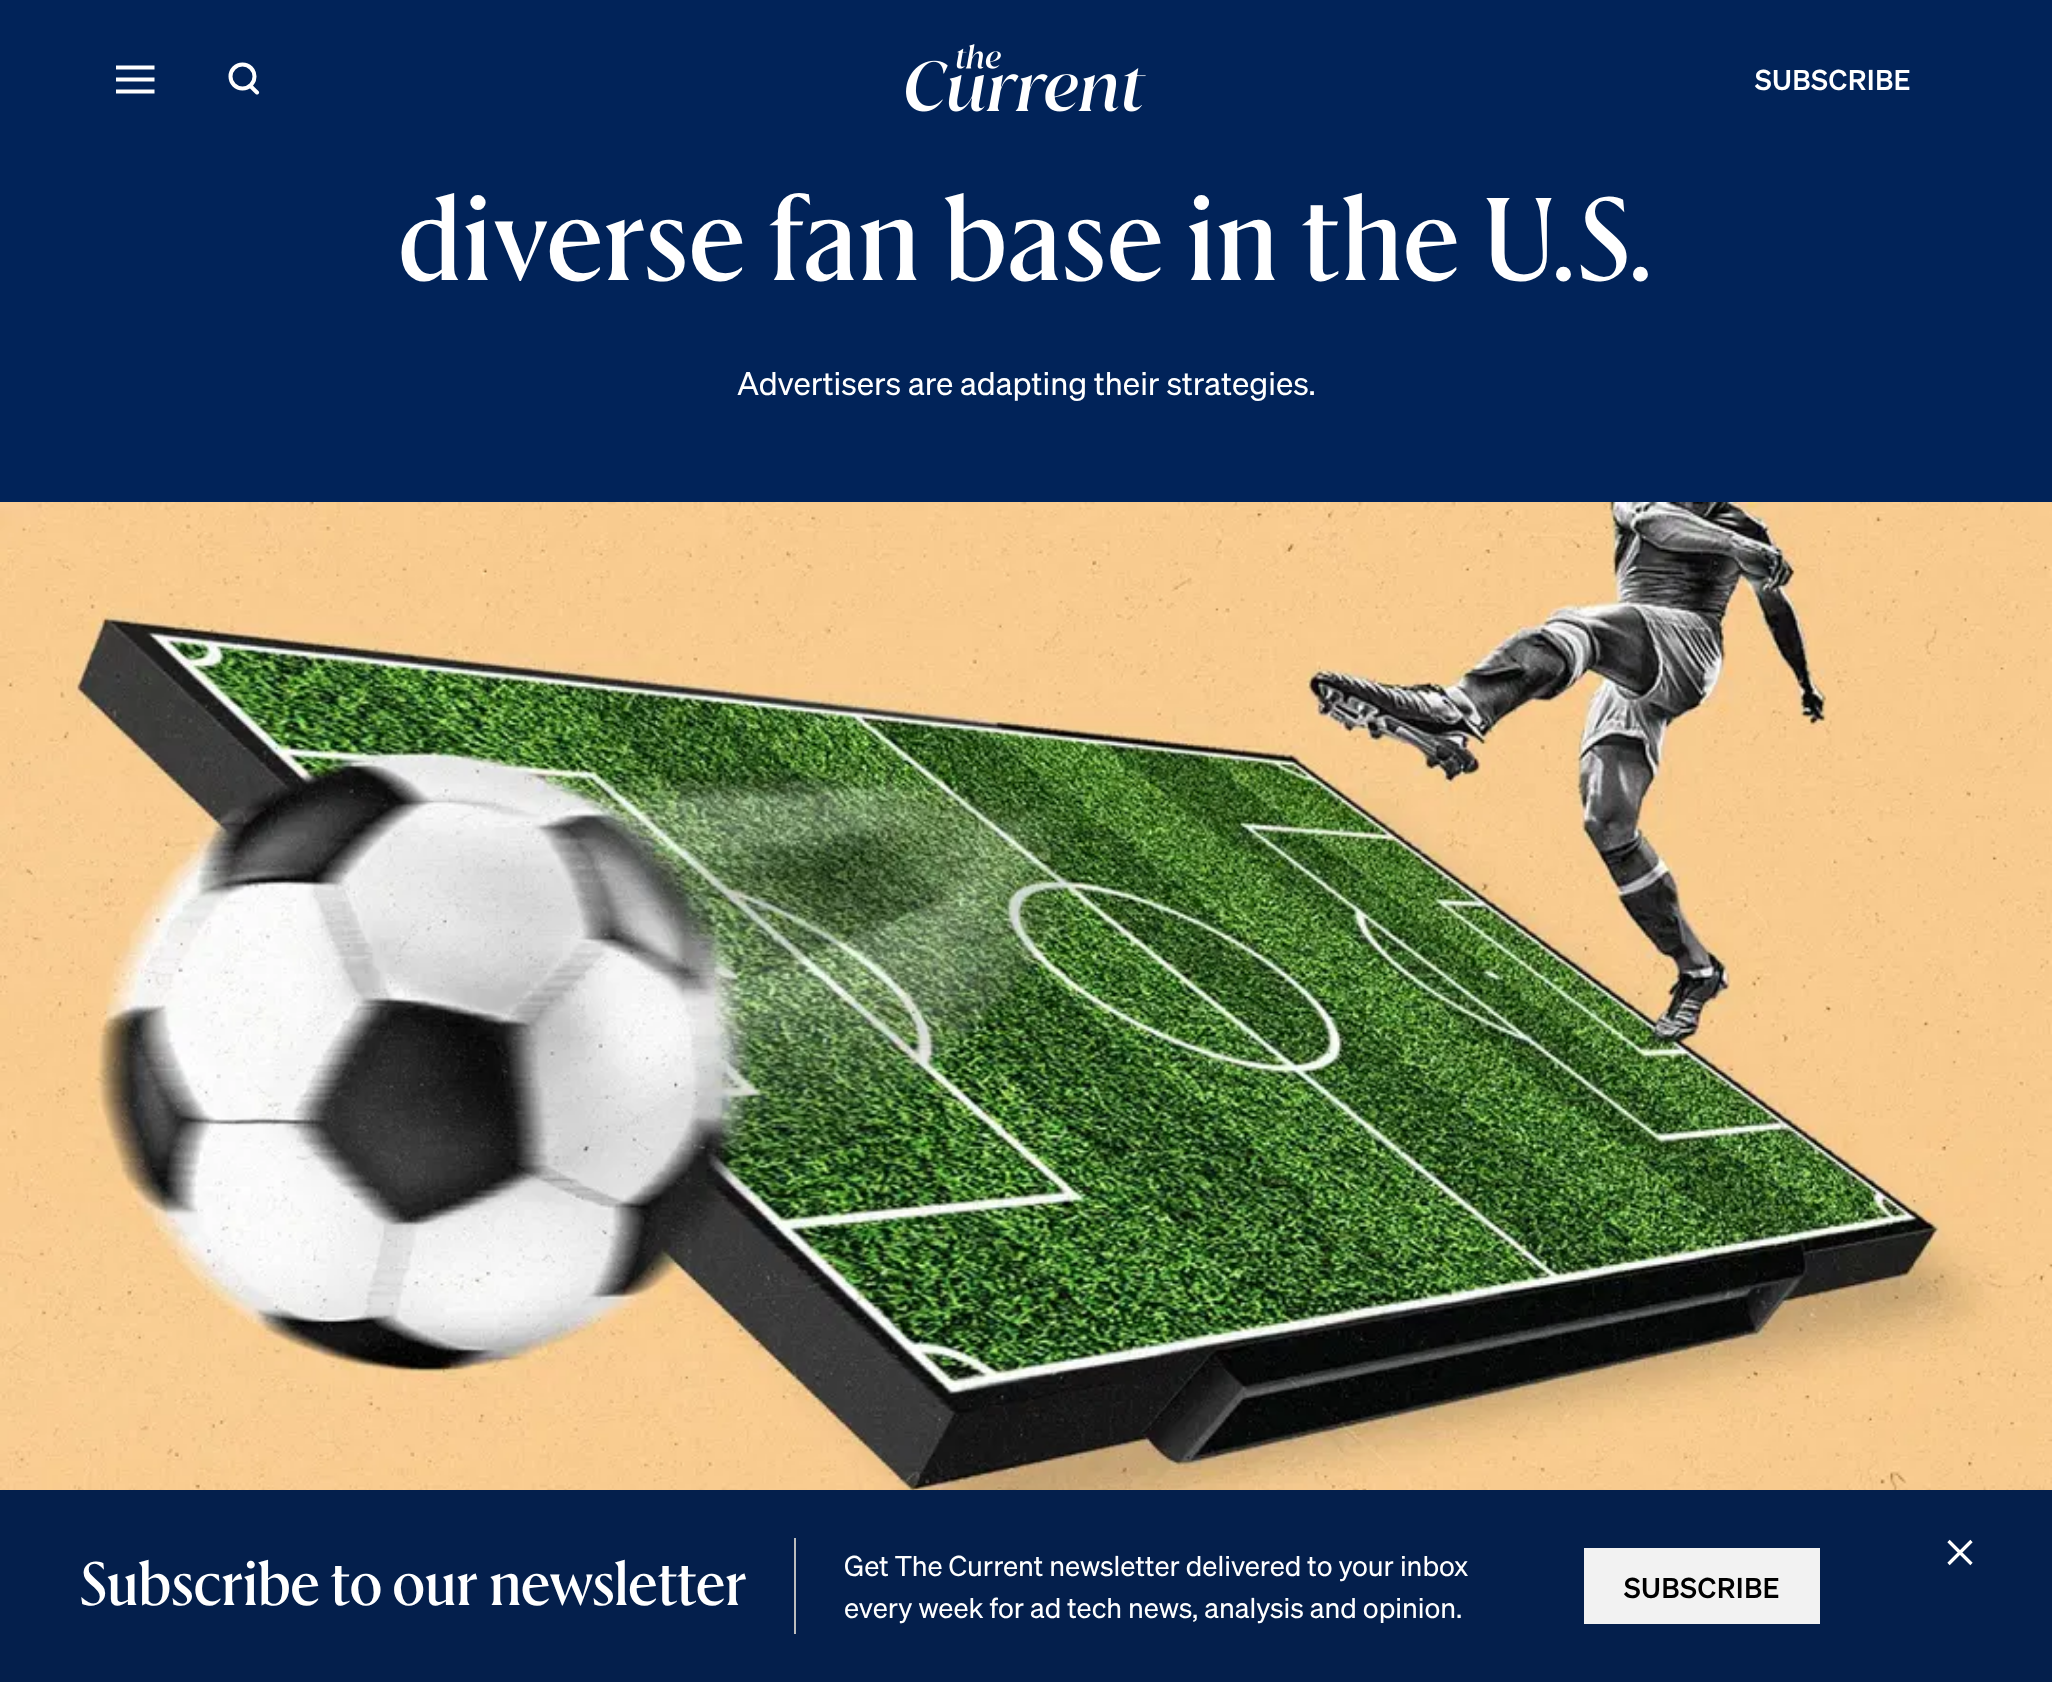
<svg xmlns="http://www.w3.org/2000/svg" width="2052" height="1682">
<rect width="100%" height="100%" fill="#012359"/>
<path d="M118 67.5h34.5m-34.5 12h34.5m-34.5 12h34.5" fill="none" stroke="#fff" stroke-width="4" stroke-linecap="square"/>
<circle cx="242.5" cy="76.5" r="12" fill="none" stroke="#fff" stroke-width="4"/>
<path d="M250.5 86l6.5 6.5" fill="none" stroke="#fff" stroke-width="4" stroke-linecap="round"/>
<image x="906" y="44" width="240" height="68" href="media/1.png"/>
<text x="1755" y="90" style="font-family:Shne;font-size:28px;font-weight:500;letter-spacing:0.75px;fill:#fff">SUBSCRIBE</text>
<text x="399" y="280" style="font-family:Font;font-size:117px;font-weight:500;letter-spacing:0.6px;fill:#fff">diverse fan base in the U.S.</text>
<text x="737" y="395" style="font-family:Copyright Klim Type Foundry;font-size:32px;fill:#fff">Advertisers are adapting their strategies.</text>
<image x="0" y="502" width="2052" height="988" href="media/2.png"/>
<rect y="1490" width="2052" height="192" fill="#041f4c"/>
<text x="80" y="1605" style="font-family:Font;font-size:60.9px;font-weight:500;letter-spacing:-0.3px;fill:#fff">Subscribe to our newsletter</text>
<rect x="794" y="1538" width="2" height="96" fill="#bdbdbd"/>
<text x="844" y="1576" style="font-family:Copyright Klim Type Foundry;font-size:28px;fill:#fff">Get The Current newsletter delivered to your inbox</text>
<text x="844" y="1618" style="font-family:Copyright Klim Type Foundry;font-size:28px;fill:#fff">every week for ad tech news, analysis and opinion.</text>
<rect x="1584" y="1548" width="236" height="76" fill="#f2f2f2"/>
<text x="1624" y="1598" style="font-family:Shne;font-size:28px;font-weight:500;letter-spacing:0.75px;fill:#000">SUBSCRIBE</text>
<path d="M1948.5 1541l23 23m0-23l-23 23" fill="none" stroke="#fff" stroke-width="3.3"/>
</svg>
